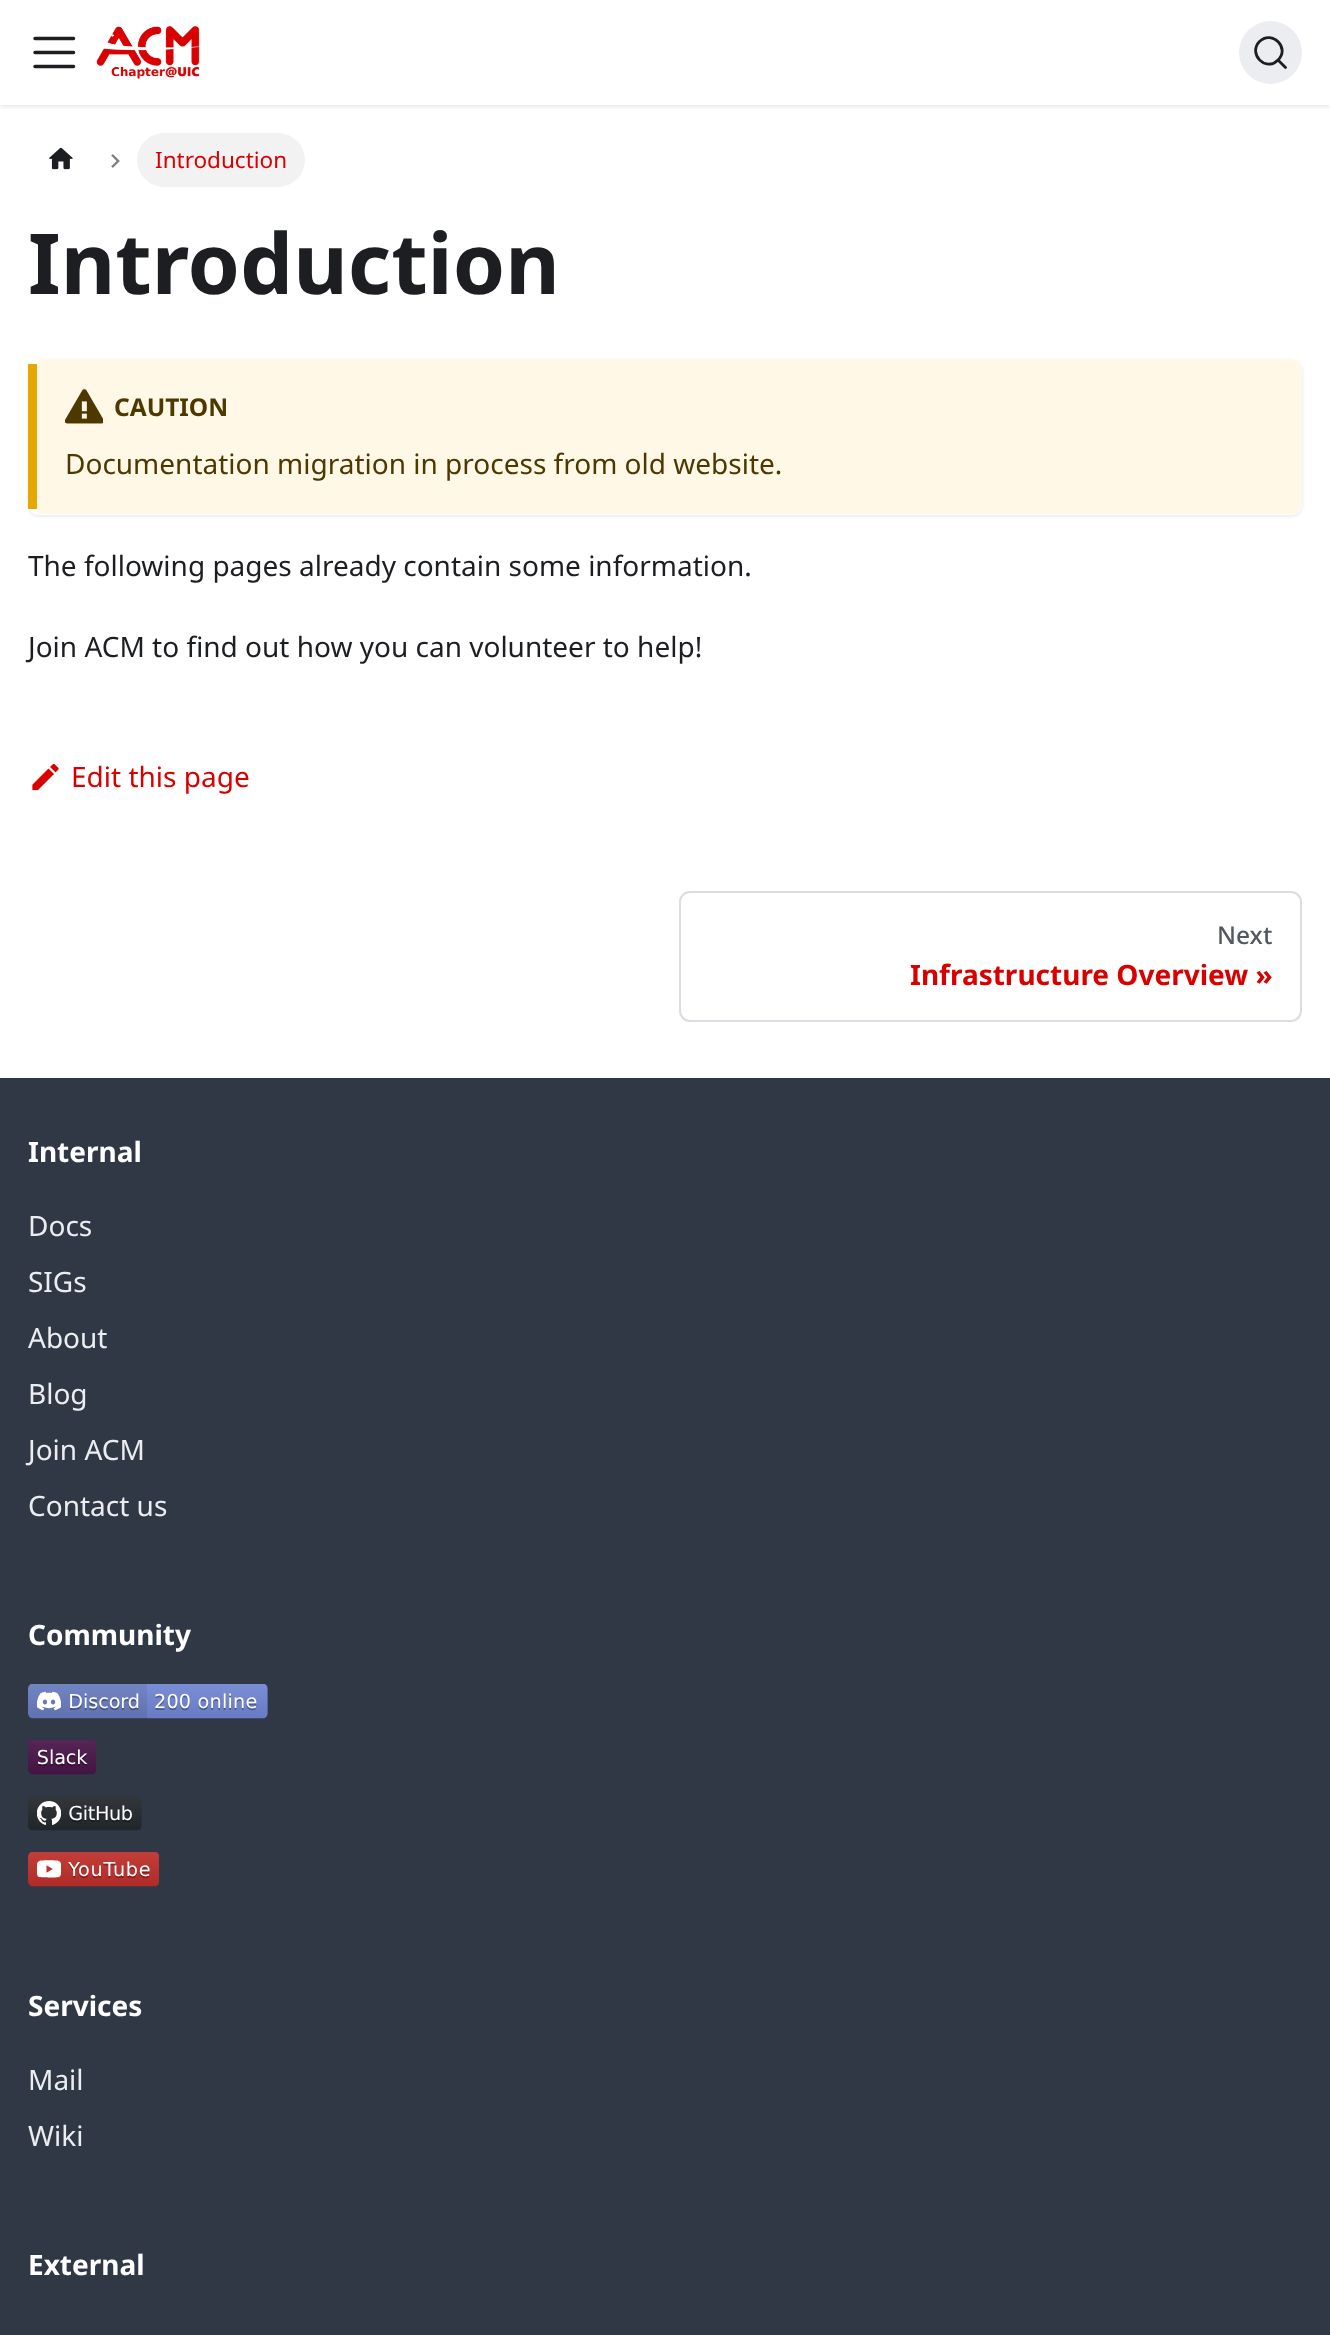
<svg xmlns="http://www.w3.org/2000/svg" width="1330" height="2335">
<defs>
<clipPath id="clip1"><rect x="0" y="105" width="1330" height="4"/></clipPath>
<clipPath id="clip2"><path d="M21 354h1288v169h-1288zm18 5h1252c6 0 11 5 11 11v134c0 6-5 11-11 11h-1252c-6 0-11-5-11-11v-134c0-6 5-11 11-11z" clip-rule="evenodd"/></clipPath>
</defs>
<rect width="100%" height="100%" fill="#fff"/>
<g clip-path="url(#clip1)">
<rect y="2" width="1330" height="105" fill="#0000001a" filter="blur(2px)"/>
</g>
<path d="M35 38.5h38.5m-38.5 14h38.5m-38.5 14h38.5" fill="none" stroke="#1c1e21" stroke-width="3.5" stroke-linecap="round"/>
<image x="96" y="26" width="104" height="53" href="media/1.png"/>
<circle cx="1270.5" cy="52.5" r="31.5" fill="#ebedf0"/>
<path d="M1278 60l7.5 7.5l-7.5-7.5c-12 12.5-30.5-6-18.5-18.5c12.5-12 31 6.5 18.5 18.5z" fill="none" stroke="#1c1e21" stroke-width="2.8" stroke-linecap="round" stroke-linejoin="round"/>
<image x="49" y="147" width="24" height="23" href="media/2.png"/>
<image x="111" y="154" width="9" height="14" href="media/3.png"/>
<rect x="137" y="133" width="168" height="54" rx="27" fill="#f2f2f2"/>
<text x="155" y="168" style="font-family:Noto Sans;font-size:22.5px;fill:#d90000">Introduction</text>
<text x="28" y="294" style="font-family:Noto Sans;font-size:84px;font-weight:bold;fill:#1c1e21">Introduction</text>
<g clip-path="url(#clip2)">
<rect x="28" y="361" width="1274" height="155" rx="11" fill="#0000001a" filter="blur(2px)"/>
</g>
<path d="M39 359h1252c6 0 11 5 11 11v133c0 6-5 11-11 11h-1252c-1 0-2-5-2-11v-133c0-6 1-11 2-11z" fill="#fff8e6"/>
<rect x="28" y="364" width="9" height="145" fill="#e6a700"/>
<image x="65" y="389" width="38" height="35" href="media/4.png"/>
<text x="114" y="416" style="font-family:Noto Sans;font-size:24.5px;font-weight:bold;fill:#4d3800">CAUTION</text>
<text x="65" y="474" style="font-family:Noto Sans;font-size:28px;fill:#4d3800">Documentation migration in process from old website.</text>
<text x="28" y="576" style="font-family:Noto Sans;font-size:28px;fill:#1c1e21">The following pages already contain some information.</text>
<text x="28" y="657" style="font-family:Noto Sans;font-size:28px;fill:#1c1e21">Join ACM to find out how you can volunteer to help!</text>
<image x="32" y="763" width="27" height="28" href="media/5.png"/>
<text x="71" y="787" style="font-family:Noto Sans;font-size:28px;fill:#d90000">Edit this page</text>
<rect x="680" y="892" width="621" height="129" rx="10" fill="none" stroke="#dadde1" stroke-width="2"/>
<text x="1217" y="944" style="font-family:Noto Sans;font-size:24.5px;font-weight:500;fill:#525860">Next</text>
<text x="910" y="985" style="font-family:Noto Sans;font-size:28px;font-weight:bold;fill:#d90000">Infrastructure Overview »</text>
<rect y="1078" width="1330" height="1257" fill="#303846"/>
<text x="28" y="1162" style="font-family:Noto Sans;font-size:28px;font-weight:bold;fill:#fff">Internal</text>
<text x="28" y="1236" style="font-family:Noto Sans;font-size:28px;fill:#ebedf0">Docs</text>
<text x="28" y="1292" style="font-family:Noto Sans;font-size:28px;fill:#ebedf0">SIGs</text>
<text x="28" y="1348" style="font-family:Noto Sans;font-size:28px;fill:#ebedf0">About</text>
<text x="28" y="1404" style="font-family:Noto Sans;font-size:28px;fill:#ebedf0">Blog</text>
<text x="28" y="1460" style="font-family:Noto Sans;font-size:28px;fill:#ebedf0">Join ACM</text>
<text x="28" y="1516" style="font-family:Noto Sans;font-size:28px;fill:#ebedf0">Contact us</text>
<text x="28" y="1645" style="font-family:Noto Sans;font-size:28px;font-weight:bold;fill:#fff">Community</text>
<image x="28" y="1684" width="240" height="35" href="media/6.png"/>
<image x="28" y="1740" width="68" height="35" href="media/7.png"/>
<image x="28" y="1796" width="114" height="35" href="media/8.png"/>
<image x="28" y="1852" width="131" height="35" href="media/9.png"/>
<text x="28" y="2016" style="font-family:Noto Sans;font-size:28px;font-weight:bold;fill:#fff">Services</text>
<text x="28" y="2090" style="font-family:Noto Sans;font-size:28px;fill:#ebedf0">Mail</text>
<text x="28" y="2146" style="font-family:Noto Sans;font-size:28px;fill:#ebedf0">Wiki</text>
<text x="28" y="2275" style="font-family:Noto Sans;font-size:28px;font-weight:bold;fill:#fff">External</text>
</svg>
